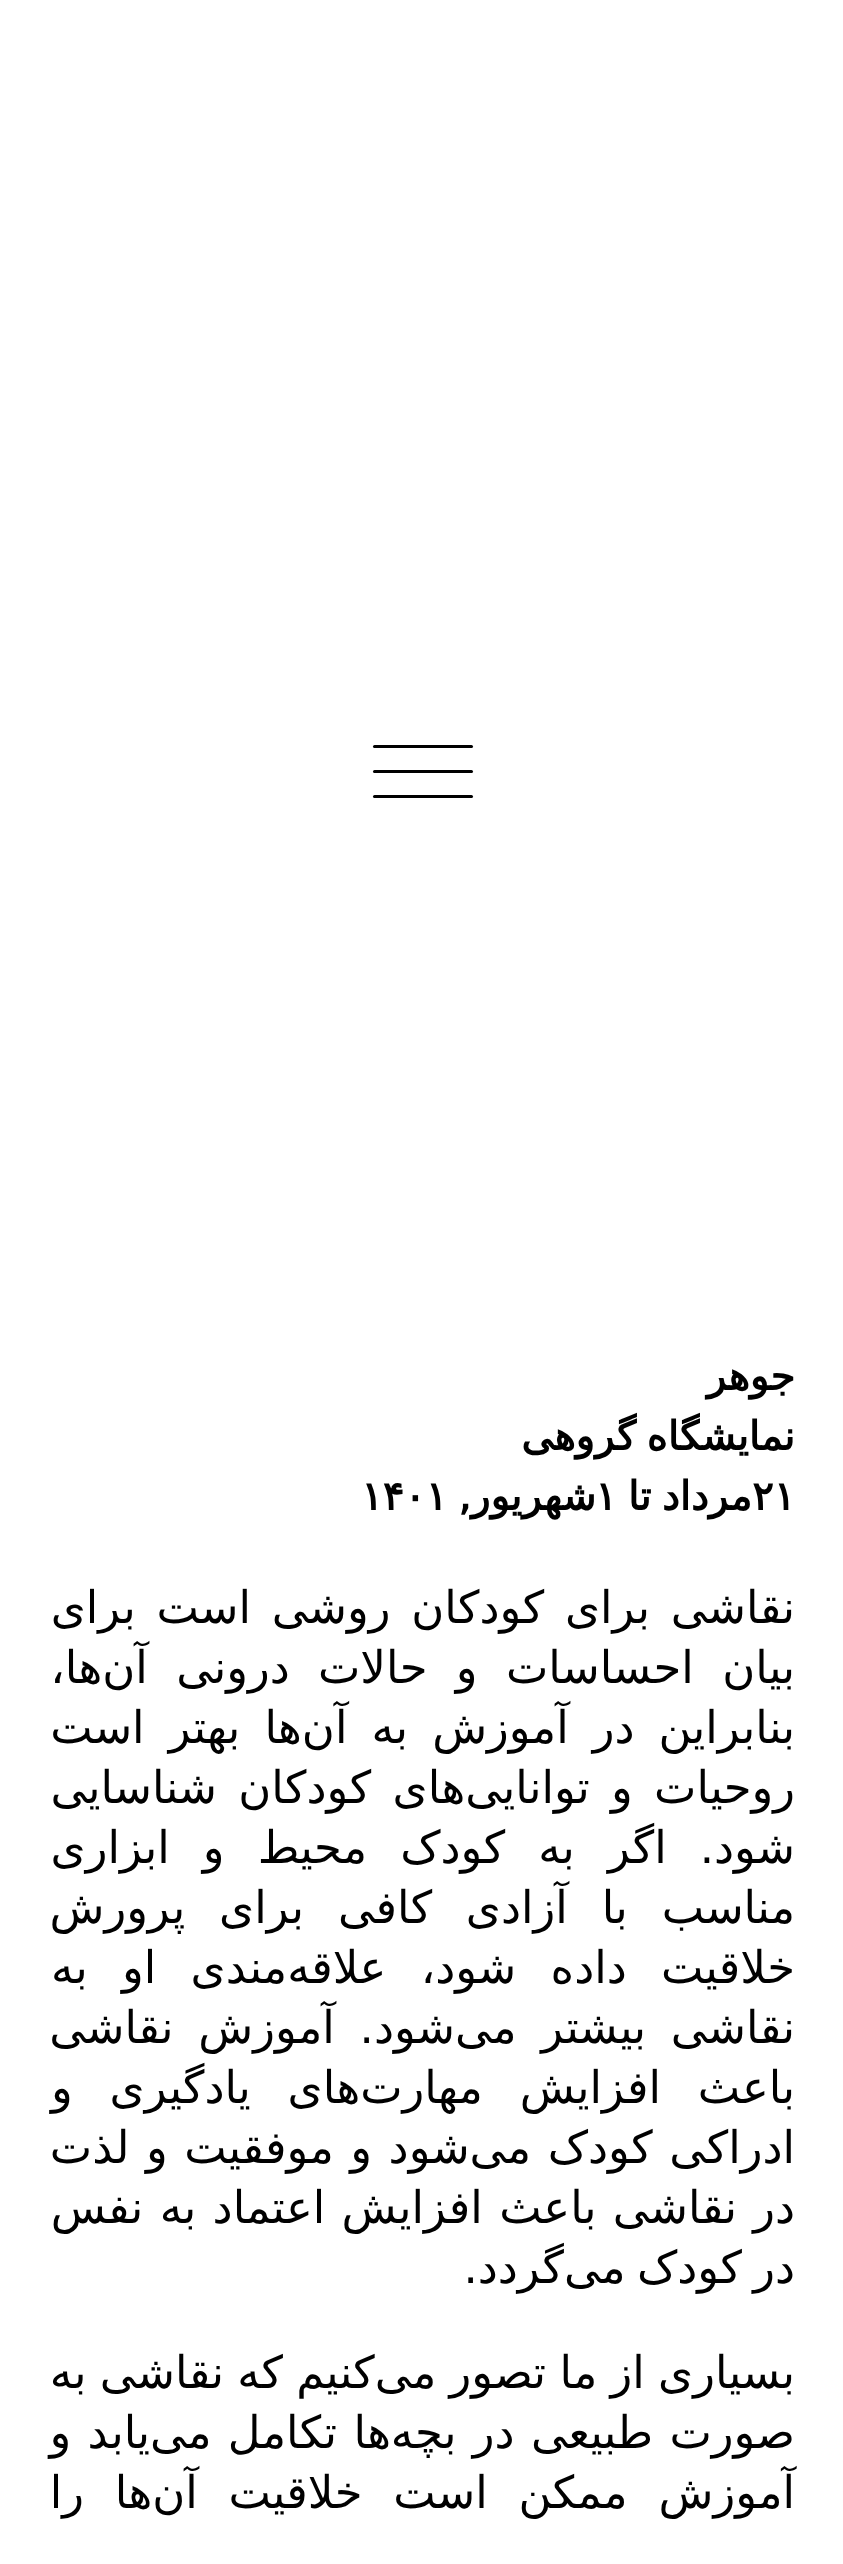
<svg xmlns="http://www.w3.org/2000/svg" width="843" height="2564">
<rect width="100%" height="100%" fill="#fff"/>
<rect x="373" y="795" width="100" height="3" rx="1.5" fill="#000"/>
<rect x="373" y="745" width="100" height="3" rx="1.5" fill="#000"/>
<rect x="373" y="770" width="100" height="3" rx="1.5" fill="#000"/>
<text x="795" y="1390" style="font-family:DejaVu Sans;font-size:40px;font-weight:bold;direction:rtl;fill:#000">جوهر</text>
<text x="795" y="1450" word-spacing="-2" style="font-family:DejaVu Sans;font-size:40px;font-weight:bold;direction:rtl;fill:#000">نمایشگاه گروهی</text>
<text x="752" y="1510" style="font-family:DejaVu Sans;font-size:40px;font-weight:bold;fill:#000">۲۱</text>
<text x="752" y="1510" word-spacing="-2" style="font-family:DejaVu Sans;font-size:40px;font-weight:bold;direction:rtl;fill:#000">مرداد تا</text>
<text x="595" y="1510" style="font-family:DejaVu Sans;font-size:40px;font-weight:bold;fill:#000">۱</text>
<text x="596" y="1510" style="font-family:DejaVu Sans;font-size:40px;font-weight:bold;direction:rtl;fill:#000">شهریور,</text>
<text x="361" y="1510" style="font-family:DejaVu Sans;font-size:40px;font-weight:bold;fill:#000">۱۴۰۱</text>
<text x="795" y="1623" word-spacing="6.5" style="font-family:DejaVu Sans;font-size:45px;direction:rtl;fill:#000">نقاشی برای کودکان روشی است برای</text>
<text x="795" y="1683" word-spacing="14" style="font-family:DejaVu Sans;font-size:45px;direction:rtl;fill:#000">بیان احساسات و حالات درونی آن‌ها،</text>
<text x="795" y="1743" word-spacing="9.75" style="font-family:DejaVu Sans;font-size:45px;direction:rtl;fill:#000">بنابراین در آموزش به آن‌ها بهتر است</text>
<text x="795" y="1803" word-spacing="7" style="font-family:DejaVu Sans;font-size:45px;direction:rtl;fill:#000">روحیات و توانایی‌های کودکان شناسایی</text>
<text x="795" y="1863" word-spacing="18.75" style="font-family:DejaVu Sans;font-size:45px;direction:rtl;fill:#000">شود. اگر به کودک محیط و ابزاری</text>
<text x="795" y="1923" word-spacing="19.5" style="font-family:DejaVu Sans;font-size:45px;direction:rtl;fill:#000">مناسب با آزادی کافی برای پرورش</text>
<text x="795" y="1983" word-spacing="20" style="font-family:DejaVu Sans;font-size:45px;direction:rtl;fill:#000">خلاقیت داده شود، علاقه‌مندی او به</text>
<text x="795" y="2043" word-spacing="10.5" style="font-family:DejaVu Sans;font-size:45px;direction:rtl;fill:#000">نقاشی بیشتر می‌شود. آموزش نقاشی</text>
<text x="795" y="2103" word-spacing="22.5" style="font-family:DejaVu Sans;font-size:45px;direction:rtl;fill:#000">باعث افزایش مهارت‌های یادگیری و</text>
<text x="795" y="2163" word-spacing="2.25" style="font-family:DejaVu Sans;font-size:45px;direction:rtl;fill:#000">ادراکی کودک می‌شود و موفقیت و لذت</text>
<text x="795" y="2223" word-spacing="2" style="font-family:DejaVu Sans;font-size:45px;direction:rtl;fill:#000">در نقاشی باعث افزایش اعتماد به نفس</text>
<text x="795" y="2283" word-spacing="-3" style="font-family:DejaVu Sans;font-size:45px;direction:rtl;fill:#000">در کودک می‌گردد.</text>
<text x="795" y="2388" word-spacing="-1" style="font-family:DejaVu Sans;font-size:45px;direction:rtl;fill:#000">بسیاری از ما تصور می‌کنیم که نقاشی به</text>
<text x="795" y="2448" word-spacing="2" style="font-family:DejaVu Sans;font-size:45px;direction:rtl;fill:#000">صورت طبیعی در بچه‌ها تکامل می‌یابد و</text>
<text x="795" y="2508" word-spacing="16.5" style="font-family:DejaVu Sans;font-size:45px;direction:rtl;fill:#000">آموزش ممکن است خلاقیت آن‌ها را</text>
</svg>
